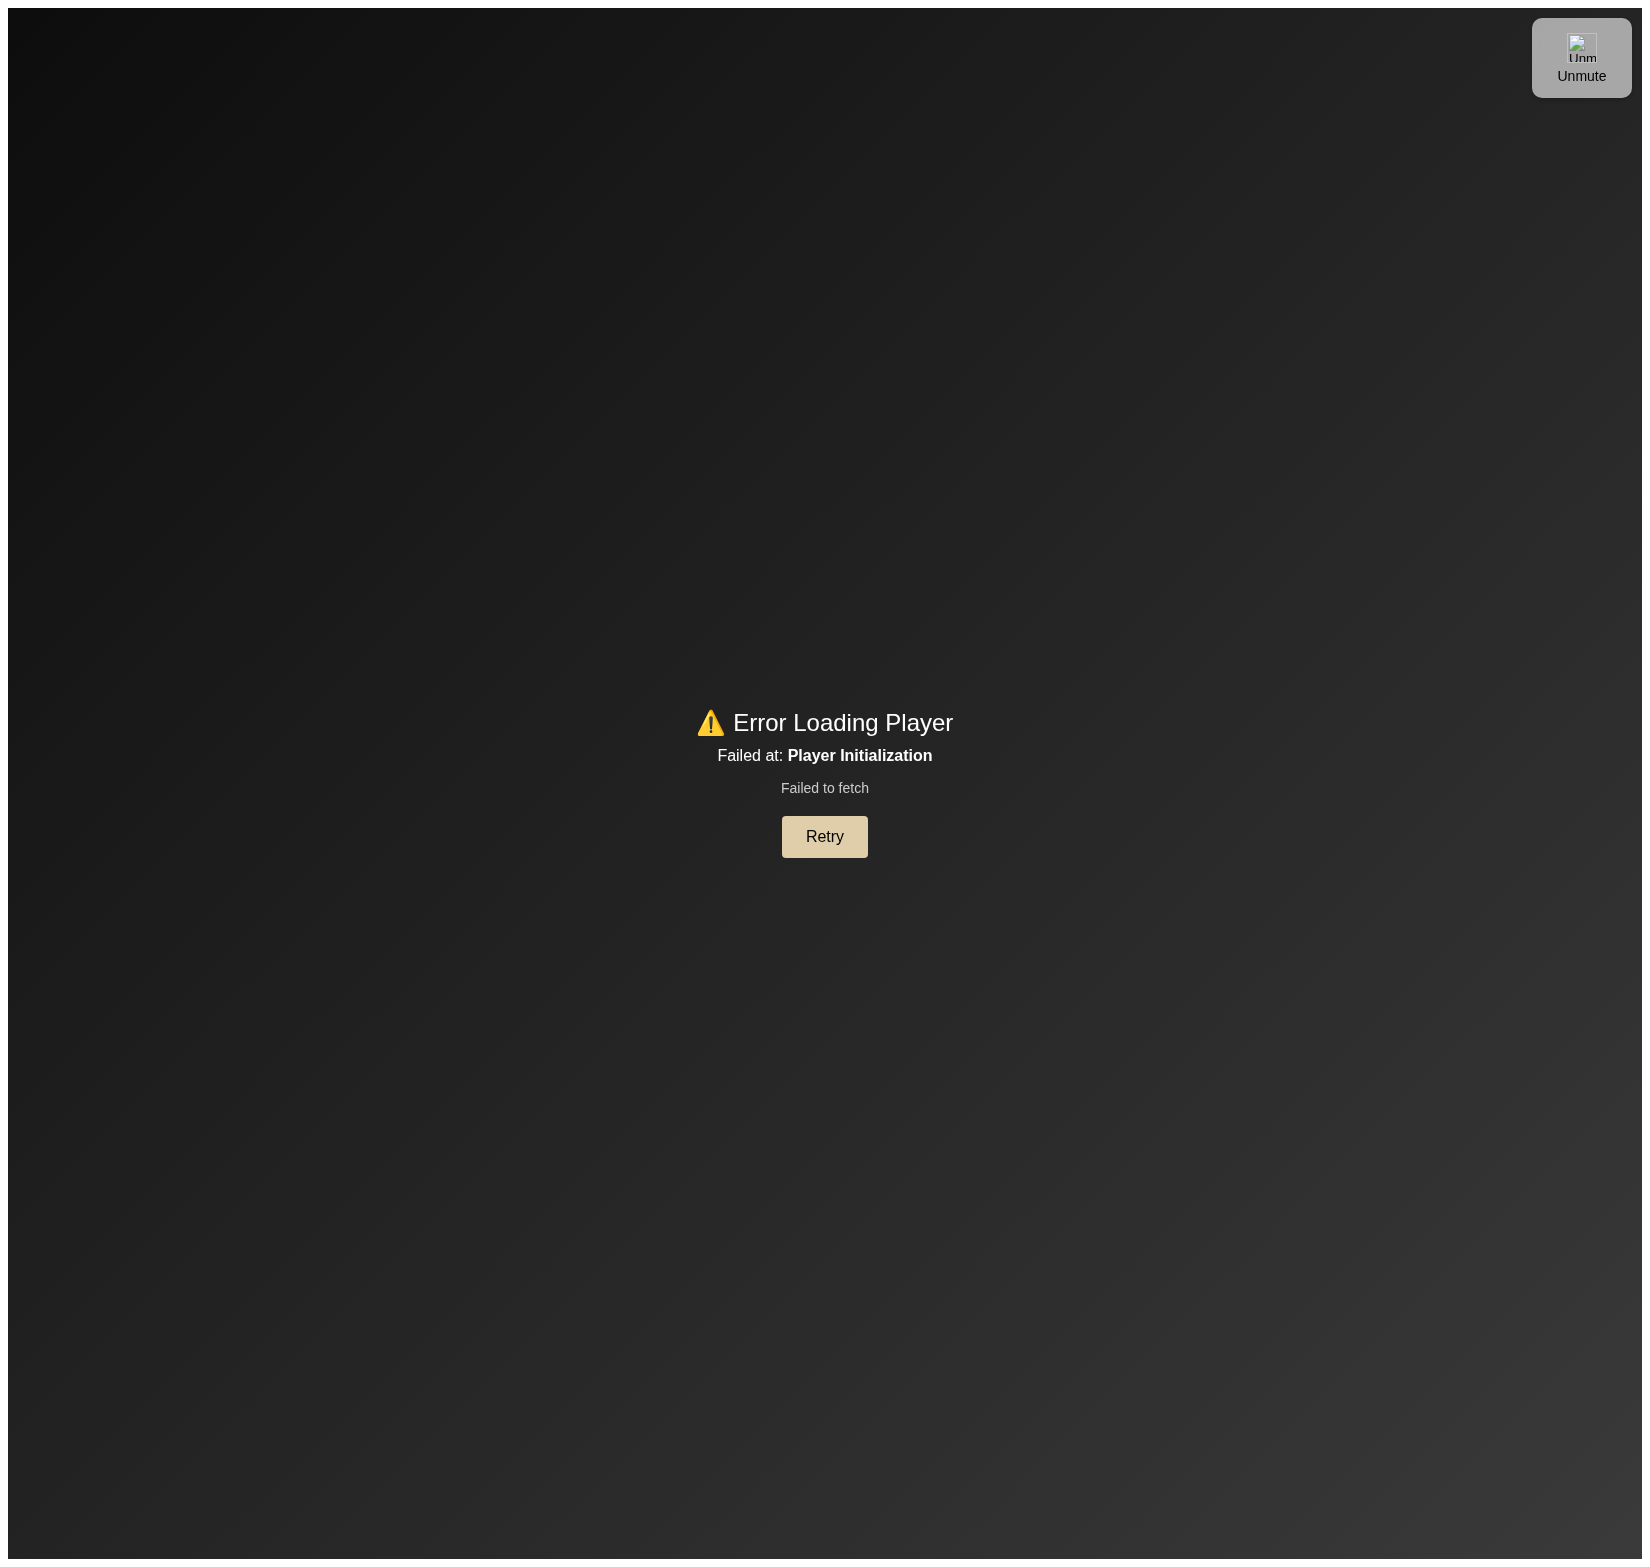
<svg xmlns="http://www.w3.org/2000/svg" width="1650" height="1567">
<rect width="100%" height="100%" fill="#fff"/>
<image x="8" y="8" width="1634" height="1551" href="media/1.png"/>
</svg>
